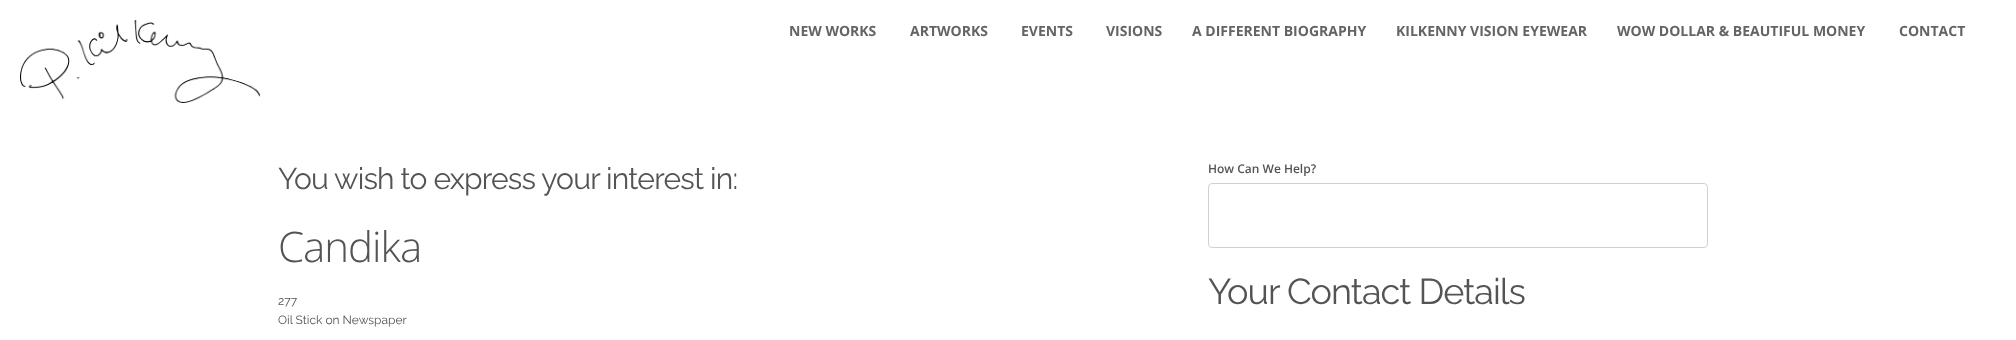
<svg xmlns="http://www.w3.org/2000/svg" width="2016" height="340">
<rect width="100%" height="100%" fill="#fff"/>
<image x="20" y="20" width="240" height="83" href="media/1.png"/>
<text x="789" y="36" style="font-family:Open Sans;font-size:14px;font-weight:bold;fill:#656464">NEW WORKS</text>
<text x="910" y="36" style="font-family:Open Sans;font-size:14px;font-weight:bold;fill:#656464">ARTWORKS</text>
<text x="1021" y="36" style="font-family:Open Sans;font-size:14px;font-weight:bold;fill:#656464">EVENTS</text>
<text x="1106" y="36" style="font-family:Open Sans;font-size:14px;font-weight:bold;fill:#656464">VISIONS</text>
<text x="1192" y="36" style="font-family:Open Sans;font-size:14px;font-weight:bold;fill:#656464">A DIFFERENT BIOGRAPHY</text>
<text x="1396" y="36" style="font-family:Open Sans;font-size:14px;font-weight:bold;fill:#656464">KILKENNY VISION EYEWEAR</text>
<text x="1617" y="36" style="font-family:Open Sans;font-size:14px;font-weight:bold;fill:#656464">WOW DOLLAR &amp; BEAUTIFUL MONEY</text>
<text x="1899" y="36" style="font-family:Open Sans;font-size:14px;font-weight:bold;fill:#656464">CONTACT</text>
<text x="278" y="189" style="font-family:Raleway;font-size:30px;font-weight:100;letter-spacing:-0.8px;fill:#545454">You wish to express your interest in:</text>
<text x="278" y="262" style="font-family:Open Sans;font-size:42px;font-weight:300;letter-spacing:-1px;fill:#545454">Candika</text>
<text x="278" y="305" style="font-family:Raleway;font-size:12px;font-weight:100;fill:#545454">277</text>
<text x="278" y="324" style="font-family:Raleway;font-size:12px;font-weight:100;fill:#545454">Oil Stick on Newspaper</text>
<text x="1208" y="173" style="font-family:Open Sans;font-size:12px;font-weight:600;fill:#545454">How Can We Help?</text>
<rect x="1208.5" y="183.5" width="499" height="64" rx="3.5" fill="none" stroke="#d1d1d1"/>
<text x="1208" y="304" style="font-family:Raleway;font-size:36px;font-weight:100;letter-spacing:-1px;fill:#545454">Your Contact Details</text>
</svg>
